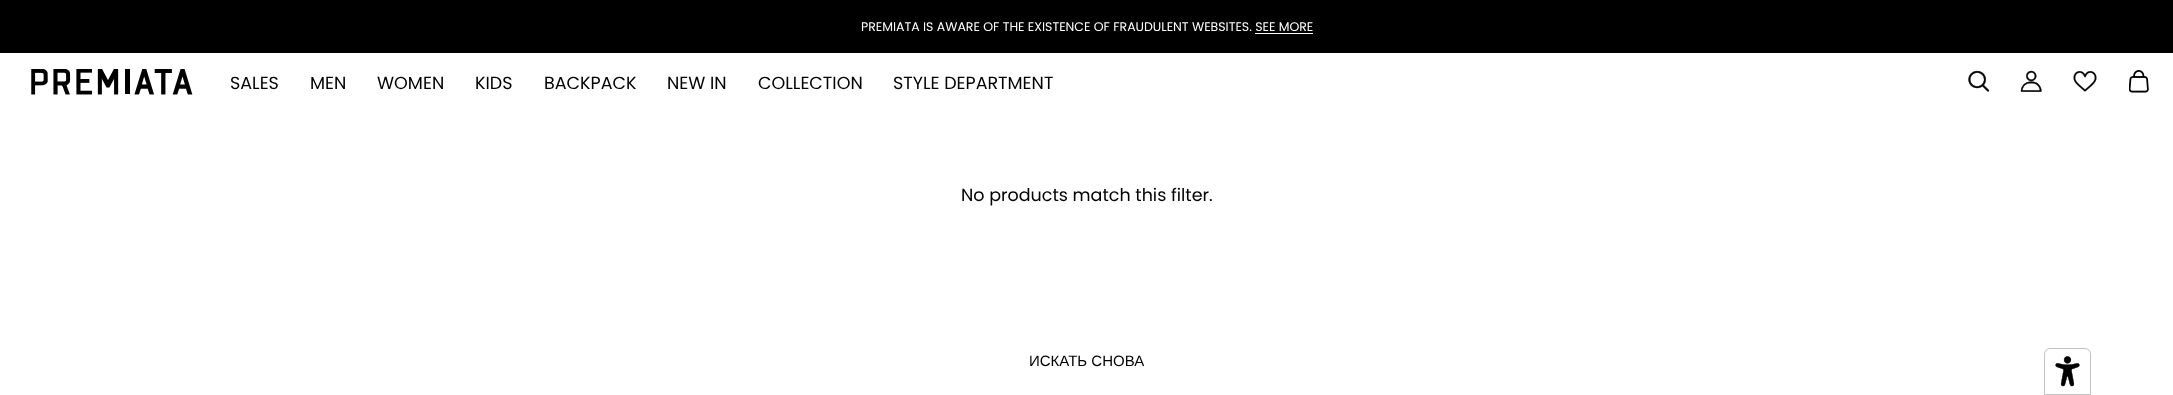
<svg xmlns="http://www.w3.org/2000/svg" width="2173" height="395">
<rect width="100%" height="100%" fill="#fff"/>
<rect width="2173" height="53" fill="#000"/>
<text x="861" y="31" style="font-family:Poppins;font-size:12.5px;fill:#fff">PREMIATA IS AWARE OF THE EXISTENCE OF FRAUDULENT WEBSITES. SEE MORE</text>
<rect x="1255" y="33" width="58" height="1" fill="#fff"/>
<image x="31" y="69" width="162" height="26" href="media/1.png"/>
<text x="230" y="89" style="font-family:Poppins;font-size:17.5px;fill:#000">SALES</text>
<text x="310" y="89" style="font-family:Poppins;font-size:17.5px;fill:#000">MEN</text>
<text x="377" y="89" style="font-family:Poppins;font-size:17.5px;fill:#000">WOMEN</text>
<text x="475" y="89" style="font-family:Poppins;font-size:17.5px;fill:#000">KIDS</text>
<text x="544" y="89" style="font-family:Poppins;font-size:17.5px;fill:#000">BACKPACK</text>
<text x="667" y="89" style="font-family:Poppins;font-size:17.5px;fill:#000">NEW IN</text>
<text x="758" y="89" style="font-family:Poppins;font-size:17.5px;fill:#000">COLLECTION</text>
<text x="893" y="89" style="font-family:Poppins;font-size:17.5px;fill:#000">STYLE DEPARTMENT</text>
<image x="1968" y="70" width="22" height="22" href="media/2.png"/>
<image x="2020" y="70" width="22" height="22" href="media/3.png"/>
<image x="2073" y="71" width="24" height="21" href="media/4.png"/>
<image x="2129" y="70" width="20" height="23" href="media/5.png"/>
<text x="961" y="201" style="font-family:Poppins;font-size:17.5px;fill:#000">No products match this filter.</text>
<text x="1029" y="366" style="font-family:Liberation Sans;font-size:15px;fill:#000">ИСКАТЬ СНОВА</text>
<image x="2055" y="356" width="25" height="31" href="media/6.png"/>
<path d="M2050 348.5h35c3 0 5.5 2.5 5.5 5.5v40.5h-46v-40.5c0-3 2.5-5.5 5.5-5.5z" fill="none" stroke="#c2c2c2"/>
</svg>
